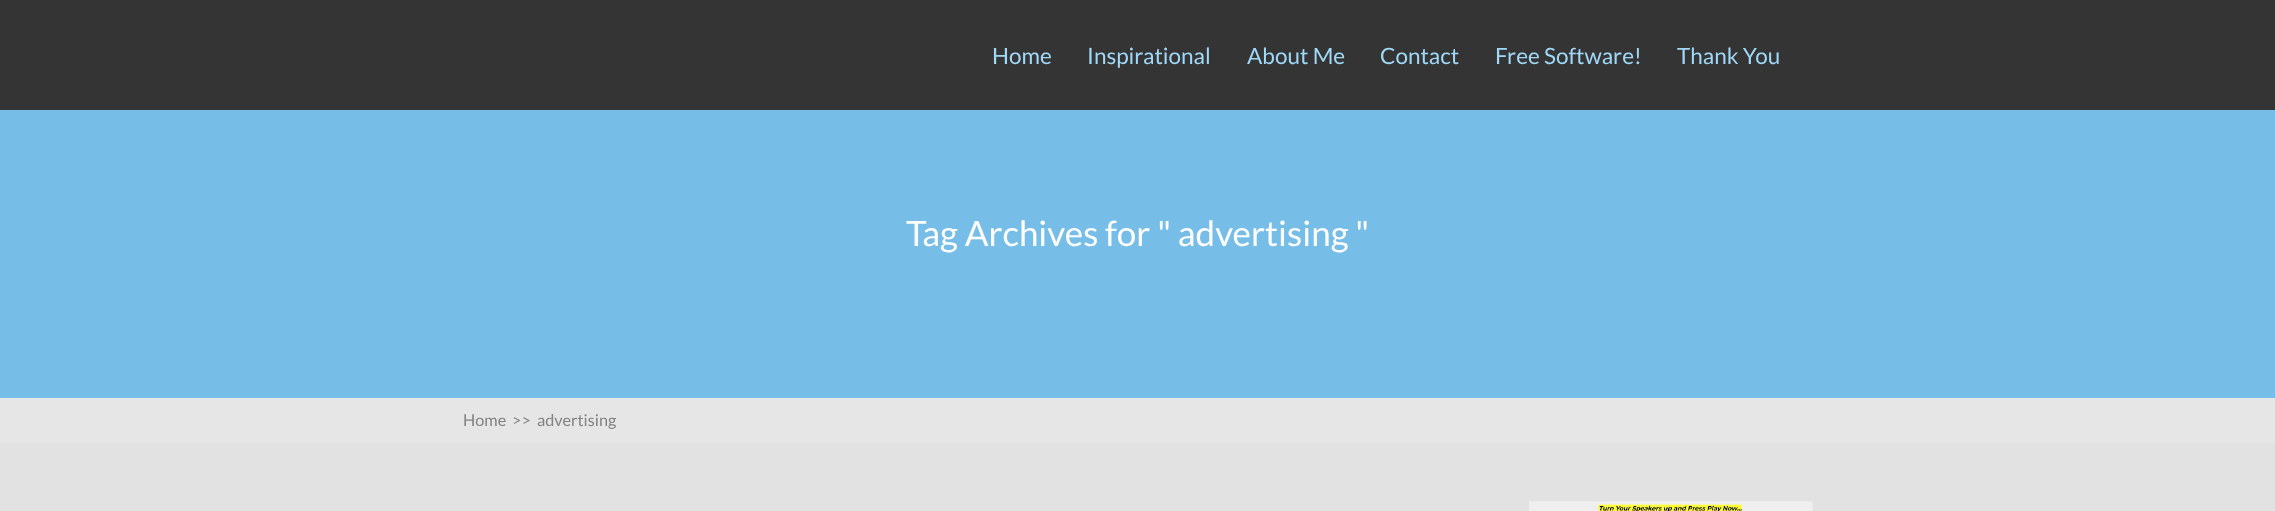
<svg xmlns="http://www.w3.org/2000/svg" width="2275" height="511">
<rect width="100%" height="100%" fill="#e2e2e2"/>
<rect width="2275" height="110" fill="#343434"/>
<text x="992" y="64" style="font-family:Lato;font-size:22.5px;fill:#a0d8f8">Home</text>
<text x="1087" y="64" style="font-family:Lato;font-size:22.5px;fill:#a0d8f8">Inspirational</text>
<text x="1247" y="64" style="font-family:Lato;font-size:22.5px;fill:#a0d8f8">About Me</text>
<text x="1380" y="64" style="font-family:Lato;font-size:22.5px;fill:#a0d8f8">Contact</text>
<text x="1495" y="64" style="font-family:Lato;font-size:22.5px;fill:#a0d8f8">Free Software!</text>
<text x="1677" y="64" style="font-family:Lato;font-size:22.5px;fill:#a0d8f8">Thank You</text>
<rect y="110" width="2275" height="288" fill="#76bee7"/>
<text x="906" y="246" style="font-family:Lato;font-size:35px;fill:#fefefe">Tag Archives for " advertising "</text>
<rect y="398" width="2275" height="45" fill="#e6e6e6"/>
<text x="463" y="426" style="font-family:Lato;font-size:16.25px;fill:#828282">Home</text>
<text x="512" y="426" style="font-family:Lato;font-size:16.25px;fill:#828282">&gt;&gt;</text>
<text x="537" y="426" style="font-family:Lato;font-size:16.25px;fill:#828282">advertising</text>
<image x="1529" y="501" width="284" height="10" href="media/1.png"/>
</svg>
